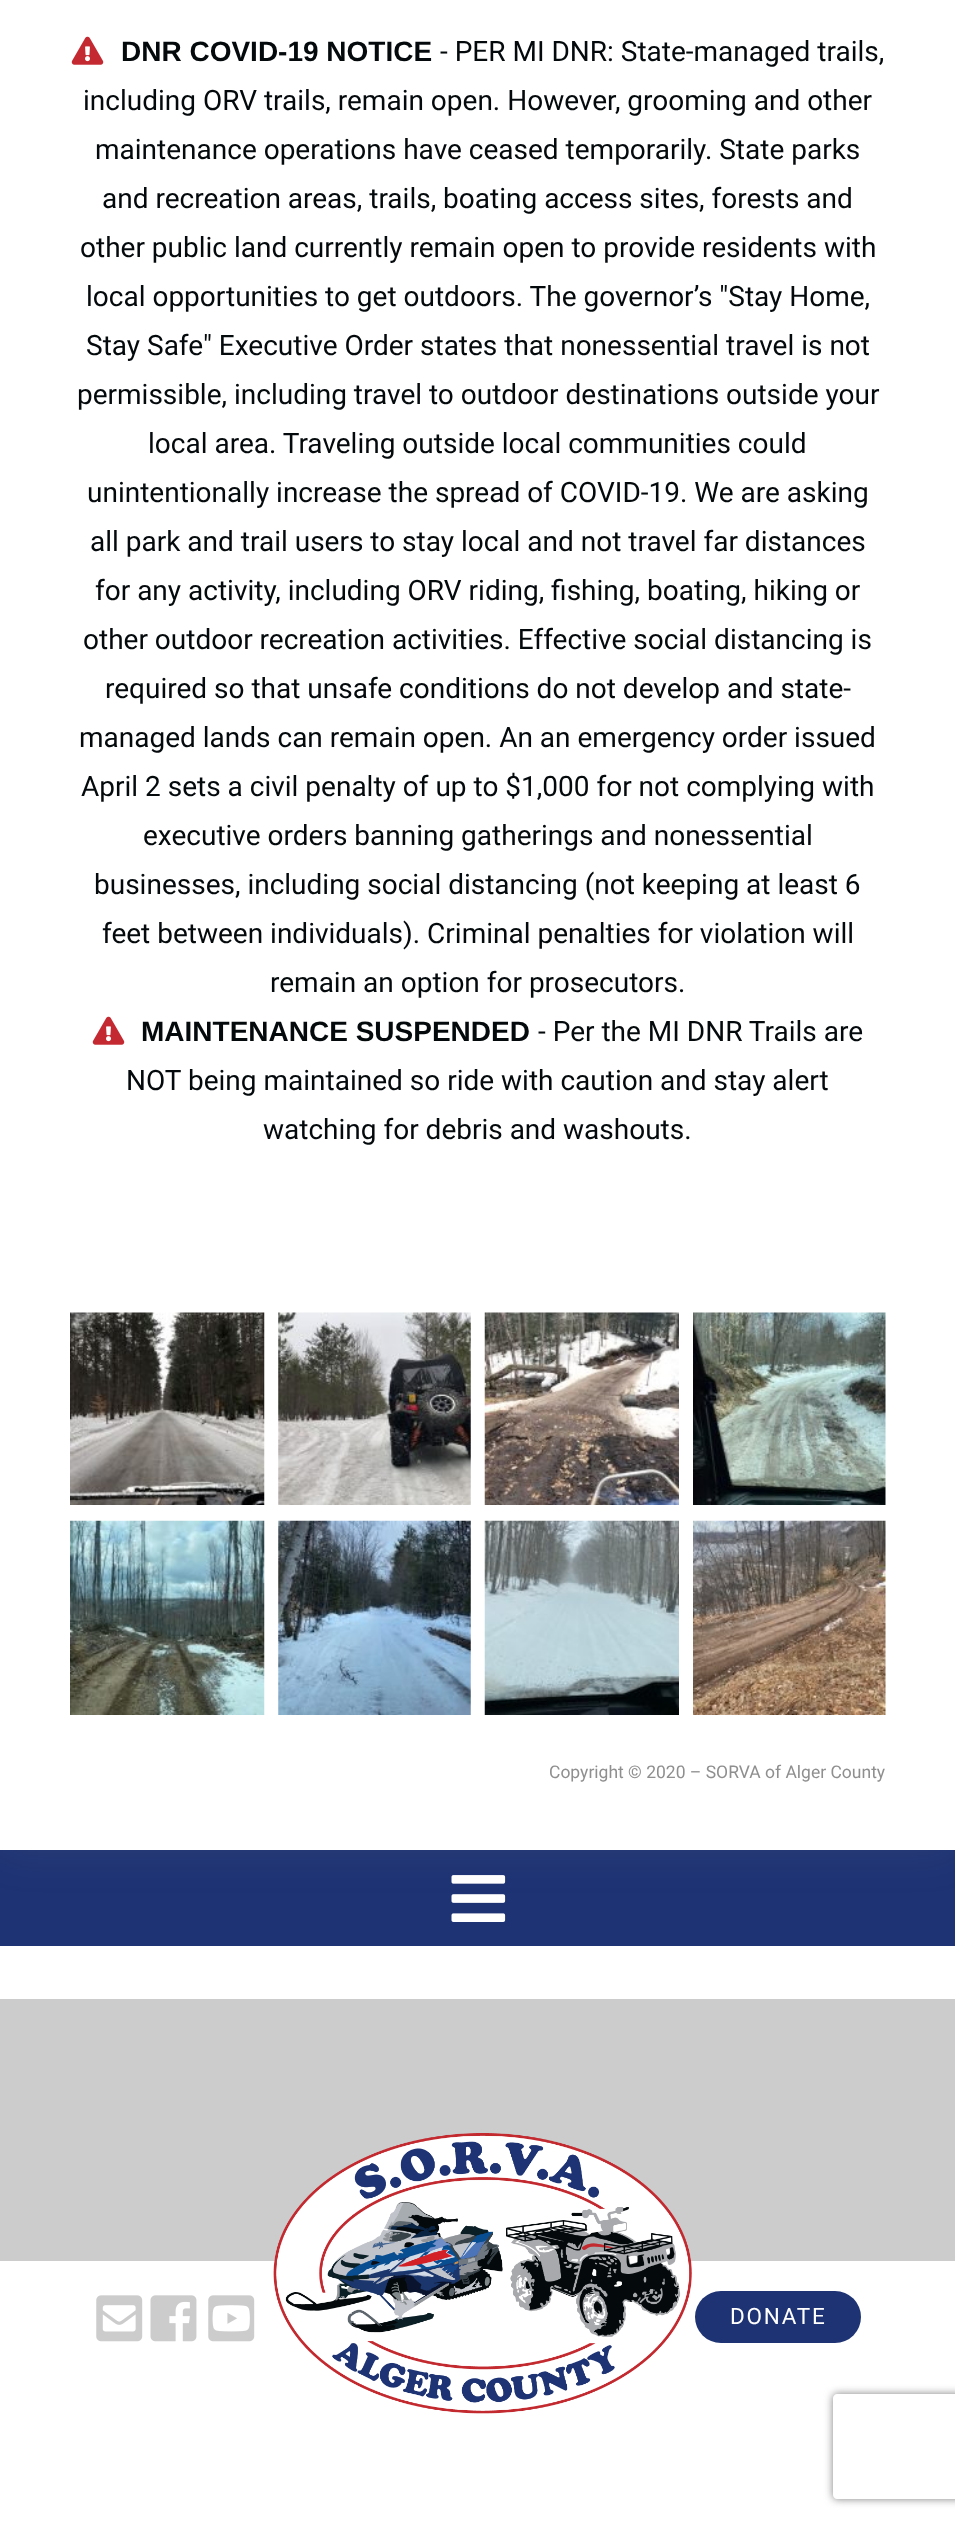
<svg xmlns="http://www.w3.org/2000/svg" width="955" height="2522">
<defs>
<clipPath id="clip1"><path d="M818 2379h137v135h-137zm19 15h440c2 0 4 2 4 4v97c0 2-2 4-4 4h-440c-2 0-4-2-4-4v-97c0-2 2-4 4-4z" clip-rule="evenodd"/></clipPath>
</defs>
<rect width="100%" height="100%" fill="#fff"/>
<rect y="1850" width="955" height="96" fill="#1e3374"/>
<image x="451" y="1875" width="55" height="47" href="media/10.png"/>
<rect y="-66" width="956" height="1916" fill="#8f8f8f1f" filter="blur(22px)"/>
<rect width="955" height="1850" fill="#fff"/>
<image x="71" y="36" width="33" height="29" href="media/1.png"/>
<text x="121" y="61" style="font-family:Liberation Sans;font-size:28px;font-weight:bold;fill:#04090c">DNR COVID-19 NOTICE</text>
<text x="440" y="61" style="font-family:Roboto;font-size:28px;fill:#04090c">- PER MI DNR: State-managed trails,</text>
<text x="83" y="110" style="font-family:Roboto;font-size:28px;fill:#04090c">including ORV trails, remain open. However, grooming and other</text>
<text x="95" y="159" style="font-family:Roboto;font-size:28px;fill:#04090c">maintenance operations have ceased temporarily. State parks</text>
<text x="102" y="208" style="font-family:Roboto;font-size:28px;fill:#04090c">and recreation areas, trails, boating access sites, forests and</text>
<text x="80" y="257" style="font-family:Roboto;font-size:28px;fill:#04090c">other public land currently remain open to provide residents with</text>
<text x="86" y="306" style="font-family:Roboto;font-size:28px;fill:#04090c">local opportunities to get outdoors. The governor’s "Stay Home,</text>
<text x="86" y="355" style="font-family:Roboto;font-size:28px;fill:#04090c">Stay Safe" Executive Order states that nonessential travel is not</text>
<text x="77" y="404" style="font-family:Roboto;font-size:28px;fill:#04090c">permissible, including travel to outdoor destinations outside your</text>
<text x="148" y="453" style="font-family:Roboto;font-size:28px;fill:#04090c">local area. Traveling outside local communities could</text>
<text x="87" y="502" style="font-family:Roboto;font-size:28px;fill:#04090c">unintentionally increase the spread of COVID-19. We are asking</text>
<text x="90" y="551" style="font-family:Roboto;font-size:28px;fill:#04090c">all park and trail users to stay local and not travel far distances</text>
<text x="95" y="600" style="font-family:Roboto;font-size:28px;fill:#04090c">for any activity, including ORV riding, fishing, boating, hiking or</text>
<text x="83" y="649" style="font-family:Roboto;font-size:28px;fill:#04090c">other outdoor recreation activities. Effective social distancing is</text>
<text x="105" y="698" style="font-family:Roboto;font-size:28px;fill:#04090c">required so that unsafe conditions do not develop and state-</text>
<text x="79" y="747" style="font-family:Roboto;font-size:28px;fill:#04090c">managed lands can remain open. An an emergency order issued</text>
<text x="81" y="796" style="font-family:Roboto;font-size:28px;fill:#04090c">April 2 sets a civil penalty of up to $1,000 for not complying with</text>
<text x="143" y="845" style="font-family:Roboto;font-size:28px;fill:#04090c">executive orders banning gatherings and nonessential</text>
<text x="94" y="894" style="font-family:Roboto;font-size:28px;fill:#04090c">businesses, including social distancing (not keeping at least 6</text>
<text x="102" y="943" style="font-family:Roboto;font-size:28px;fill:#04090c">feet between individuals). Criminal penalties for violation will</text>
<text x="270" y="992" style="font-family:Roboto;font-size:28px;fill:#04090c">remain an option for prosecutors.</text>
<image x="92" y="1016" width="33" height="29" href="media/1.png"/>
<text x="141" y="1041" style="font-family:Liberation Sans;font-size:28px;font-weight:bold;fill:#04090c">MAINTENANCE SUSPENDED</text>
<text x="538" y="1041" style="font-family:Roboto;font-size:28px;fill:#04090c">- Per the MI DNR Trails are</text>
<text x="126" y="1090" style="font-family:Roboto;font-size:28px;fill:#04090c">NOT being maintained so ride with caution and stay alert</text>
<text x="263" y="1139" style="font-family:Roboto;font-size:28px;fill:#04090c">watching for debris and washouts.</text>
<image x="70" y="1312" width="195" height="193" href="media/2.png"/>
<image x="278" y="1312" width="193" height="193" href="media/3.png"/>
<image x="484" y="1312" width="195" height="193" href="media/4.png"/>
<image x="693" y="1312" width="193" height="193" href="media/5.png"/>
<image x="70" y="1520" width="195" height="195" href="media/6.png"/>
<image x="278" y="1520" width="193" height="195" href="media/7.png"/>
<image x="484" y="1520" width="195" height="195" href="media/8.png"/>
<image x="693" y="1520" width="193" height="195" href="media/9.png"/>
<text x="549" y="1778" style="font-family:Roboto;font-size:17.5px;fill:#8f8f8f">Copyright © 2020 – SORVA of Alger County</text>
<rect y="1999" width="955" height="262" fill="#ccc"/>
<image x="96" y="2295" width="47" height="47" href="media/11.png"/>
<image x="150" y="2295" width="47" height="47" href="media/12.png"/>
<image x="208" y="2295" width="47" height="47" href="media/13.png"/>
<image x="273" y="2133" width="419" height="281" href="media/14.png"/>
<rect x="695" y="2291" width="166" height="52" rx="26" fill="#1e3374"/>
<text x="730" y="2324" style="font-family:Roboto;font-size:22.5px;letter-spacing:1.75px;fill:#fff">DONATE</text>
<g clip-path="url(#clip1)">
<rect x="833" y="2394" width="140" height="105" rx="4" fill="#808080" filter="blur(4.5px)"/>
</g>
</svg>
